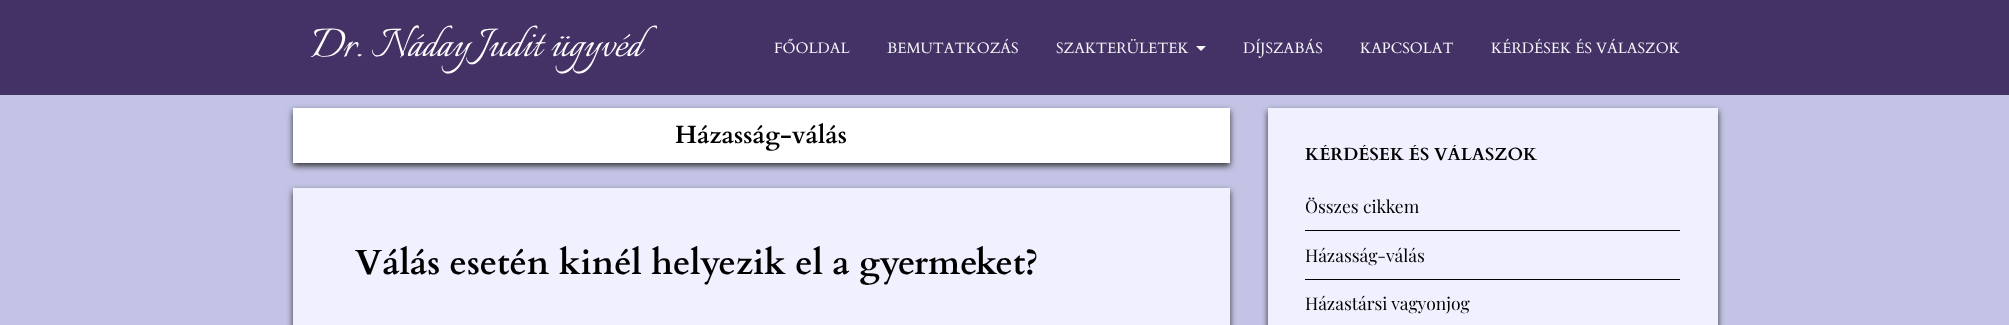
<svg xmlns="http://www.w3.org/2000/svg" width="2009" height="325">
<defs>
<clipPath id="clip1"><rect x="1305" y="145" width="375" height="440"/></clipPath>
</defs>
<rect width="100%" height="100%" fill="#c3c3e5"/>
<rect width="2009" height="95" fill="#443266"/>
<text x="311" y="56" style="font-family:Italianno;font-size:50px;fill:#fff">Dr. Náday Judit ügyvéd</text>
<text x="774" y="53" style="font-family:Cardo;font-size:15px;fill:#f5f7fa">FŐOLDAL</text>
<text x="887" y="53" style="font-family:Cardo;font-size:15px;fill:#f5f7fa">BEMUTATKOZÁS</text>
<text x="1056" y="53" style="font-family:Cardo;font-size:15px;fill:#f5f7fa">SZAKTERÜLETEK</text>
<path d="M1196 46h10l-5 5z" fill="#f5f7fa"/>
<text x="1243" y="53" style="font-family:Cardo;font-size:15px;fill:#f5f7fa">DÍJSZABÁS</text>
<text x="1360" y="53" style="font-family:Cardo;font-size:15px;fill:#f5f7fa">KAPCSOLAT</text>
<text x="1491" y="53" style="font-family:Cardo;font-size:15px;fill:#f5f7fa">KÉRDÉSEK ÉS VÁLASZOK</text>
<rect x="293" y="111" width="937" height="55" fill="#333" filter="blur(3px)"/>
<rect x="293" y="108" width="937" height="55" fill="#fff"/>
<text x="675" y="143" style="font-family:Cardo;font-size:25px;font-weight:bold;fill:#000">Házasság-válás</text>
<rect x="293" y="191" width="937" height="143" fill="#333" filter="blur(3px)"/>
<rect x="293" y="188" width="937" height="137" fill="#f1f0ff"/>
<text x="355" y="274" style="font-family:Cardo;font-size:35px;font-weight:bold;fill:#000">Válás esetén kinél helyezik el a gyermeket?</text>
<rect x="1268" y="111" width="450" height="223" fill="#333" filter="blur(3px)"/>
<rect x="1268" y="108" width="450" height="217" fill="#f1f0ff"/>
<g clip-path="url(#clip1)">
<text x="1305" y="160" style="font-family:Cardo;font-size:17.5px;font-weight:bold;fill:#000">KÉRDÉSEK ÉS VÁLASZOK</text>
</g>
<rect x="1305" y="230" width="375" height="1" fill="#000"/>
<text x="1305" y="213" style="font-family:Playfair Display;font-size:17.5px;fill:#000">Összes cikkem</text>
<rect x="1305" y="279" width="375" height="1" fill="#000"/>
<text x="1305" y="262" style="font-family:Playfair Display;font-size:17.5px;fill:#000">Házasság-válás</text>
<text x="1305" y="310" style="font-family:Playfair Display;font-size:17.5px;fill:#000">Házastársi vagyonjog</text>
</svg>
